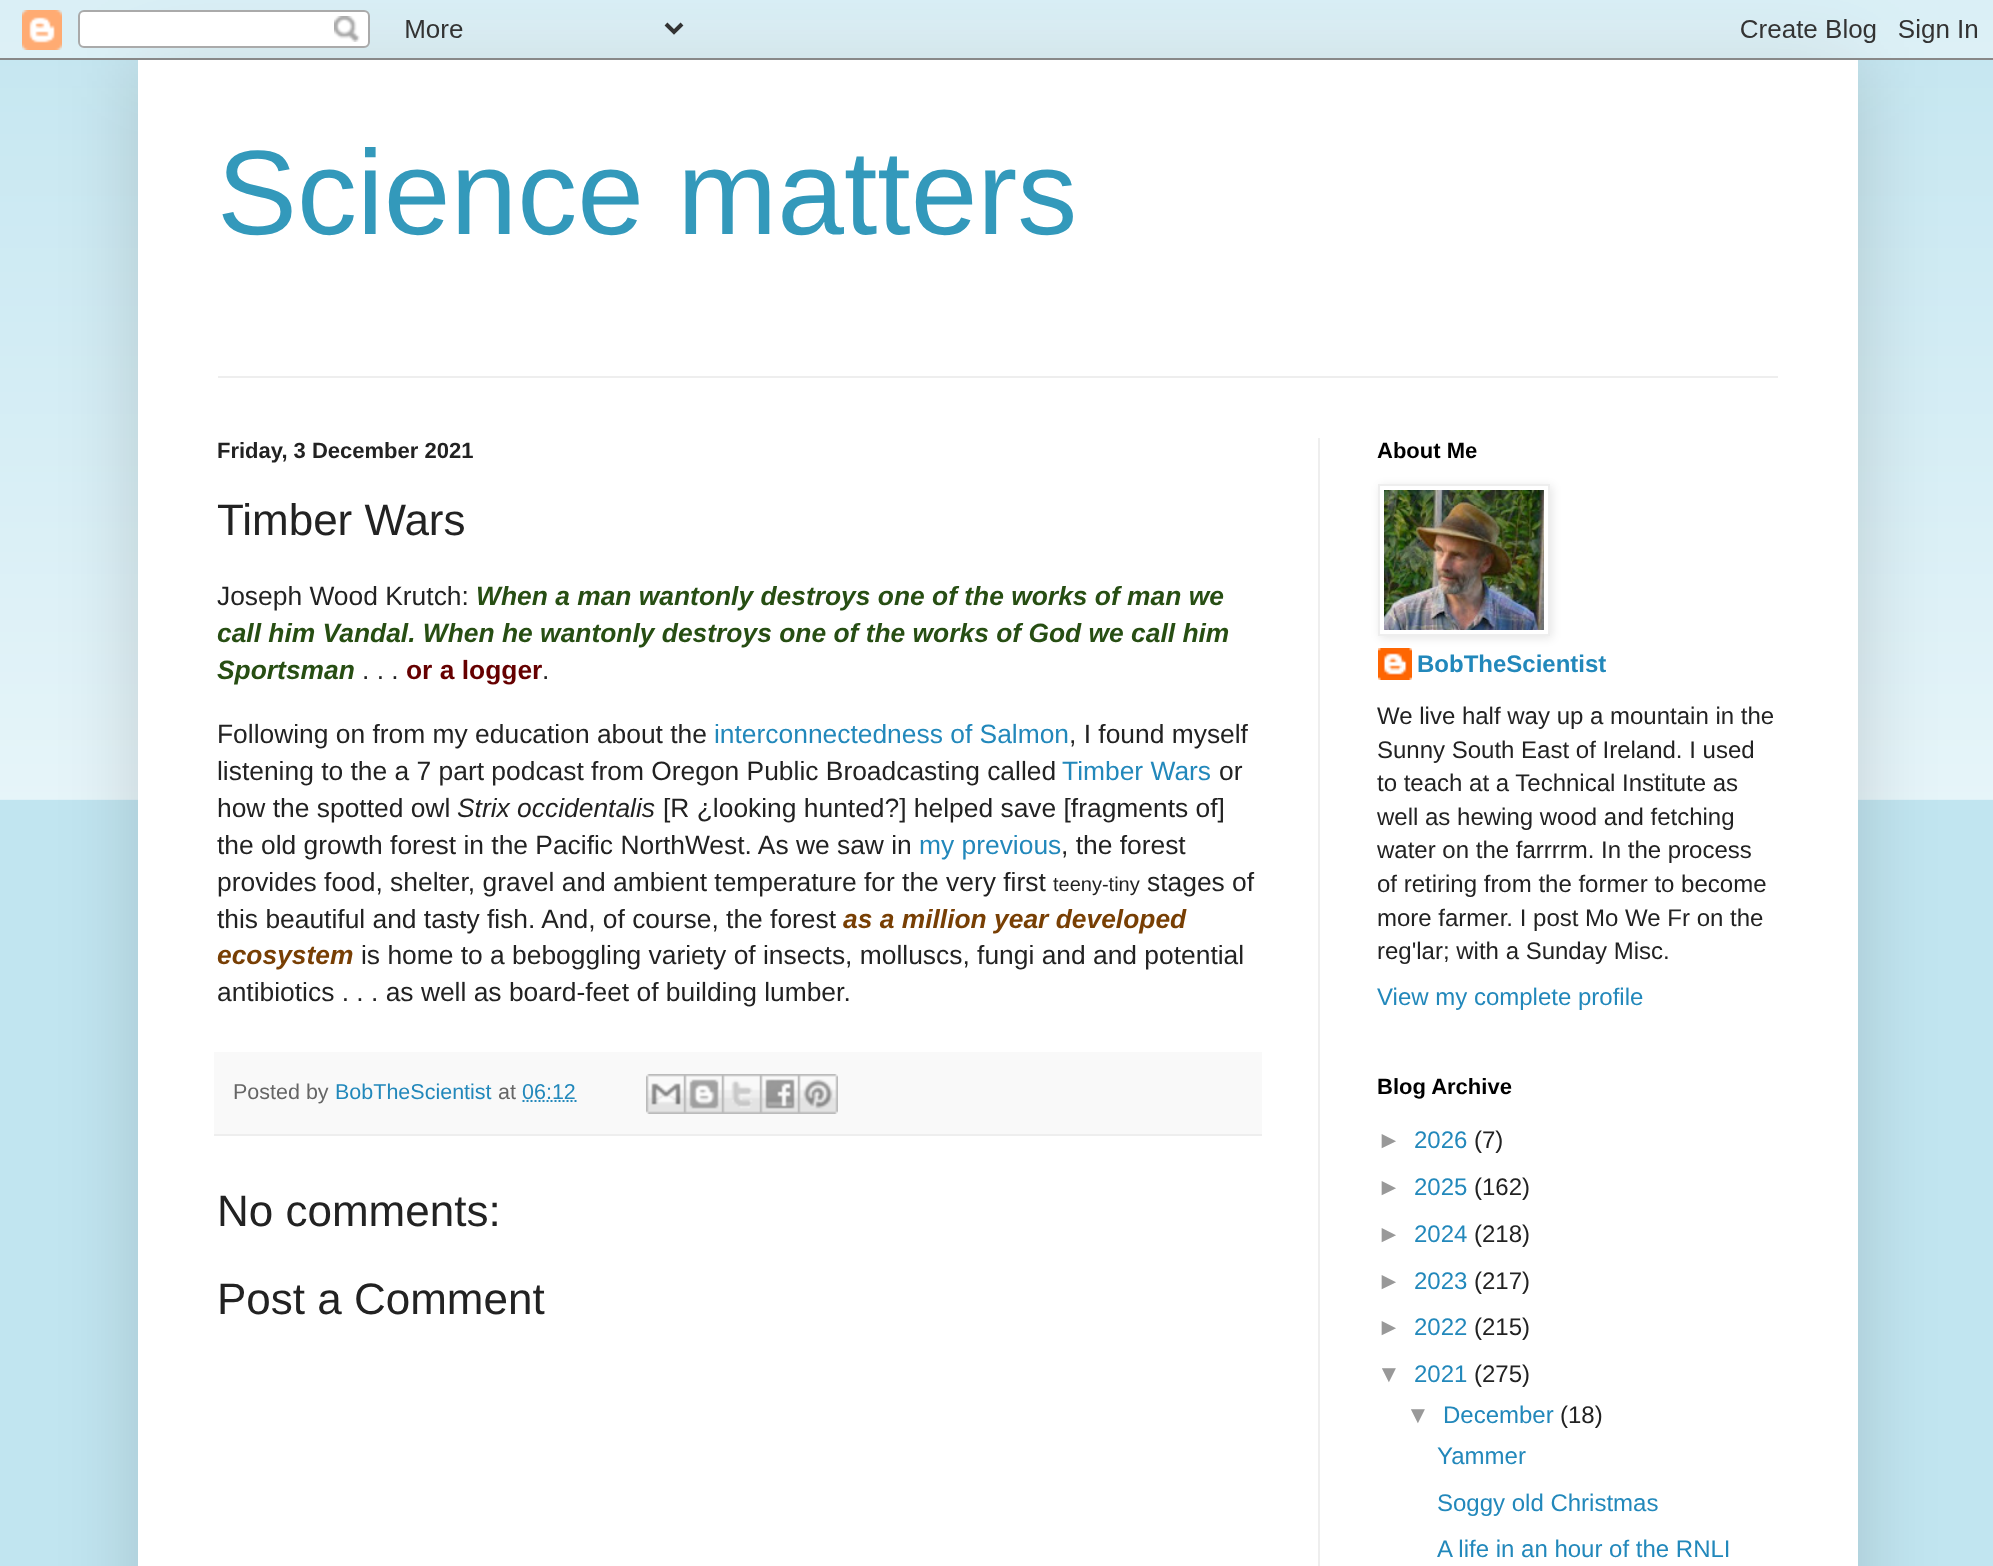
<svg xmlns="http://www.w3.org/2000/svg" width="1993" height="1566">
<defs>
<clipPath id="clip1"><path d="M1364 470h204v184h-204zm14 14h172v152h-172z" clip-rule="evenodd"/></clipPath>
</defs>
<rect width="100%" height="100%" fill="#c1e5f0"/>
<image x="0" y="20" width="1993" height="780" href="media/2.png"/>
<rect x="138" y="60" width="1720" height="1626" fill="#00000026" filter="blur(40px)"/>
<image x="0" y="0" width="1993" height="60" href="media/1.png"/>
<rect x="138" y="60" width="1720" height="1506" fill="#fff"/>
<text x="217" y="234" style="font-family:Liberation Sans;font-size:120px;fill:#39b">Science matters</text>
<rect x="218" y="376" width="1560" height="2" fill="#eee"/>
<rect x="1318" y="438" width="2" height="1128" fill="#eee"/>
<text x="217" y="458" style="font-family:Liberation Sans;font-size:22px;font-weight:bold;fill:#222">Friday, 3 December 2021</text>
<text x="217" y="535" style="font-family:Liberation Sans;font-size:44px;fill:#222">Timber Wars</text>
<text x="217" y="605" style="font-family:Liberation Sans;font-size:26.4px;fill:#222">Joseph Wood Krutch:</text>
<text x="476" y="605" style="font-family:Liberation Sans;font-size:26.4px;font-weight:bold;font-style:italic;fill:#274e13">When a man wantonly destroys one of the works of man we</text>
<text x="217" y="642" style="font-family:Liberation Sans;font-size:26.4px;font-weight:bold;font-style:italic;fill:#274e13">call him Vandal. When he wantonly destroys one of the works of God we call him</text>
<text x="217" y="679" style="font-family:Liberation Sans;font-size:26.4px;font-weight:bold;font-style:italic;fill:#274e13">Sportsman</text>
<text x="362" y="679" style="font-family:Liberation Sans;font-size:26.4px;fill:#222">. . .</text>
<text x="406" y="679" style="font-family:Liberation Sans;font-size:26.4px;font-weight:bold;fill:#600">or a logger</text>
<text x="542" y="679" style="font-family:Liberation Sans;font-size:26.4px;fill:#222">.</text>
<text x="217" y="743" style="font-family:Liberation Sans;font-size:26.4px;fill:#222">Following on from my education about the</text>
<text x="714" y="743" style="font-family:Liberation Sans;font-size:26.4px;fill:#28b">interconnectedness of Salmon</text>
<text x="1069" y="743" style="font-family:Liberation Sans;font-size:26.4px;fill:#222">, I found myself</text>
<text x="217" y="780" style="font-family:Liberation Sans;font-size:26.4px;fill:#222">listening to the a 7 part podcast from Oregon Public Broadcasting called</text>
<text x="1062" y="780" style="font-family:Liberation Sans;font-size:26.4px;fill:#28b">Timber Wars</text>
<text x="1219" y="780" style="font-family:Liberation Sans;font-size:26.4px;fill:#222">or</text>
<text x="217" y="817" style="font-family:Liberation Sans;font-size:26.4px;fill:#222">how the spotted owl</text>
<text x="457" y="817" style="font-family:Liberation Sans;font-size:26.4px;font-style:italic;fill:#222">Strix occidentalis</text>
<text x="663" y="817" style="font-family:Liberation Sans;font-size:26.4px;fill:#222">[R ¿looking hunted?] helped save [fragments of]</text>
<text x="217" y="854" style="font-family:Liberation Sans;font-size:26.4px;fill:#222">the old growth forest in the Pacific NorthWest. As we saw in</text>
<text x="919" y="854" style="font-family:Liberation Sans;font-size:26.4px;fill:#28b">my previous</text>
<text x="1061" y="854" style="font-family:Liberation Sans;font-size:26.4px;fill:#222">, the forest</text>
<text x="217" y="891" style="font-family:Liberation Sans;font-size:26.4px;fill:#222">provides food, shelter, gravel and ambient temperature for the very first</text>
<text x="1053" y="891" style="font-family:Liberation Sans;font-size:20px;fill:#222">teeny-tiny</text>
<text x="1147" y="891" style="font-family:Liberation Sans;font-size:26.4px;fill:#222">stages of</text>
<text x="217" y="928" style="font-family:Liberation Sans;font-size:26.4px;fill:#222">this beautiful and tasty fish. And, of course, the forest</text>
<text x="843" y="928" style="font-family:Liberation Sans;font-size:26.4px;font-weight:bold;font-style:italic;fill:#783f04">as a million year developed</text>
<text x="217" y="964" style="font-family:Liberation Sans;font-size:26.4px;font-weight:bold;font-style:italic;fill:#783f04">ecosystem</text>
<text x="361" y="964" style="font-family:Liberation Sans;font-size:26.4px;fill:#222">is home to a beboggling variety of insects, molluscs, fungi and and potential</text>
<text x="217" y="1001" style="font-family:Liberation Sans;font-size:26.4px;fill:#222">antibiotics . . . as well as board-feet of building lumber.</text>
<rect x="214" y="1052" width="1048" height="82" fill="#f9f9f9"/>
<rect x="214" y="1134" width="1048" height="2" fill="#eee"/>
<text x="233" y="1099" style="font-family:Liberation Sans;font-size:21.5px;fill:#666">Posted by</text>
<text x="335" y="1099" style="font-family:Liberation Sans;font-size:21.5px;fill:#28b">BobTheScientist</text>
<text x="498" y="1099" style="font-family:Liberation Sans;font-size:21.5px;fill:#666">at</text>
<text x="522" y="1099" style="font-family:Liberation Sans;font-size:21.5px;fill:#28b">06:12</text>
<path d="M522.5 1101h54" fill="none" stroke="#28b" stroke-width="2" stroke-dasharray="2 2"/>
<image x="646" y="1074" width="38" height="40" href="media/3.png"/>
<image x="684" y="1074" width="38" height="40" href="media/4.png"/>
<image x="722" y="1074" width="38" height="40" href="media/5.png"/>
<image x="760" y="1074" width="38" height="40" href="media/6.png"/>
<image x="798" y="1074" width="40" height="40" href="media/7.png"/>
<text x="217" y="1226" style="font-family:Liberation Sans;font-size:44px;fill:#222">No comments:</text>
<text x="217" y="1314" style="font-family:Liberation Sans;font-size:44px;fill:#222">Post a Comment</text>
<text x="1377" y="458" style="font-family:Liberation Sans;font-size:22px;font-weight:bold;fill:#000">About Me</text>
<image x="1378" y="648" width="34" height="32" href="media/9.png"/>
<g clip-path="url(#clip1)">
<rect x="1380" y="486" width="172" height="152" fill="#0000001a" filter="blur(5px)"/>
</g>
<rect x="1379" y="485" width="170" height="150" fill="none" stroke="#eee" stroke-width="2"/>
<image x="1384" y="490" width="160" height="140" href="media/8.png"/>
<text x="1417" y="672" style="font-family:Liberation Sans;font-size:24px;font-weight:bold;fill:#28b">BobTheScientist</text>
<text x="1377" y="724" style="font-family:Liberation Sans;font-size:24px;fill:#222">We live half way up a mountain in the</text>
<text x="1377" y="758" style="font-family:Liberation Sans;font-size:24px;fill:#222">Sunny South East of Ireland. I used</text>
<text x="1377" y="791" style="font-family:Liberation Sans;font-size:24px;fill:#222">to teach at a Technical Institute as</text>
<text x="1377" y="825" style="font-family:Liberation Sans;font-size:24px;fill:#222">well as hewing wood and fetching</text>
<text x="1377" y="858" style="font-family:Liberation Sans;font-size:24px;fill:#222">water on the farrrrm. In the process</text>
<text x="1377" y="892" style="font-family:Liberation Sans;font-size:24px;fill:#222">of retiring from the former to become</text>
<text x="1377" y="926" style="font-family:Liberation Sans;font-size:24px;fill:#222">more farmer. I post Mo We Fr on the</text>
<text x="1377" y="959" style="font-family:Liberation Sans;font-size:24px;fill:#222">reg'lar; with a Sunday Misc.</text>
<text x="1377" y="1005" style="font-family:Liberation Sans;font-size:24px;fill:#28b">View my complete profile</text>
<text x="1377" y="1094" style="font-family:Liberation Sans;font-size:22px;font-weight:bold;fill:#000">Blog Archive</text>
<text x="1377" y="1148" style="font-family:Liberation Sans;font-size:24px;fill:#999">►</text>
<text x="1414" y="1148" style="font-family:Liberation Sans;font-size:24px;fill:#28b">2026</text>
<text x="1474" y="1148" style="font-family:Liberation Sans;font-size:24px;fill:#222">(7)</text>
<text x="1377" y="1195" style="font-family:Liberation Sans;font-size:24px;fill:#999">►</text>
<text x="1414" y="1195" style="font-family:Liberation Sans;font-size:24px;fill:#28b">2025</text>
<text x="1474" y="1195" style="font-family:Liberation Sans;font-size:24px;fill:#222">(162)</text>
<text x="1377" y="1242" style="font-family:Liberation Sans;font-size:24px;fill:#999">►</text>
<text x="1414" y="1242" style="font-family:Liberation Sans;font-size:24px;fill:#28b">2024</text>
<text x="1474" y="1242" style="font-family:Liberation Sans;font-size:24px;fill:#222">(218)</text>
<text x="1377" y="1289" style="font-family:Liberation Sans;font-size:24px;fill:#999">►</text>
<text x="1414" y="1289" style="font-family:Liberation Sans;font-size:24px;fill:#28b">2023</text>
<text x="1474" y="1289" style="font-family:Liberation Sans;font-size:24px;fill:#222">(217)</text>
<text x="1377" y="1335" style="font-family:Liberation Sans;font-size:24px;fill:#999">►</text>
<text x="1414" y="1335" style="font-family:Liberation Sans;font-size:24px;fill:#28b">2022</text>
<text x="1474" y="1335" style="font-family:Liberation Sans;font-size:24px;fill:#222">(215)</text>
<text x="1377" y="1382" style="font-family:Liberation Sans;font-size:24px;fill:#999">▼</text>
<text x="1414" y="1382" style="font-family:Liberation Sans;font-size:24px;fill:#28b">2021</text>
<text x="1474" y="1382" style="font-family:Liberation Sans;font-size:24px;fill:#222">(275)</text>
<text x="1406" y="1423" style="font-family:Liberation Sans;font-size:24px;fill:#999">▼</text>
<text x="1443" y="1423" style="font-family:Liberation Sans;font-size:24px;fill:#28b">December</text>
<text x="1560" y="1423" style="font-family:Liberation Sans;font-size:24px;fill:#222">(18)</text>
<text x="1437" y="1464" style="font-family:Liberation Sans;font-size:24px;fill:#28b">Yammer</text>
<text x="1437" y="1511" style="font-family:Liberation Sans;font-size:24px;fill:#28b">Soggy old Christmas</text>
<text x="1437" y="1557" style="font-family:Liberation Sans;font-size:24px;fill:#28b">A life in an hour of the RNLI</text>
</svg>
